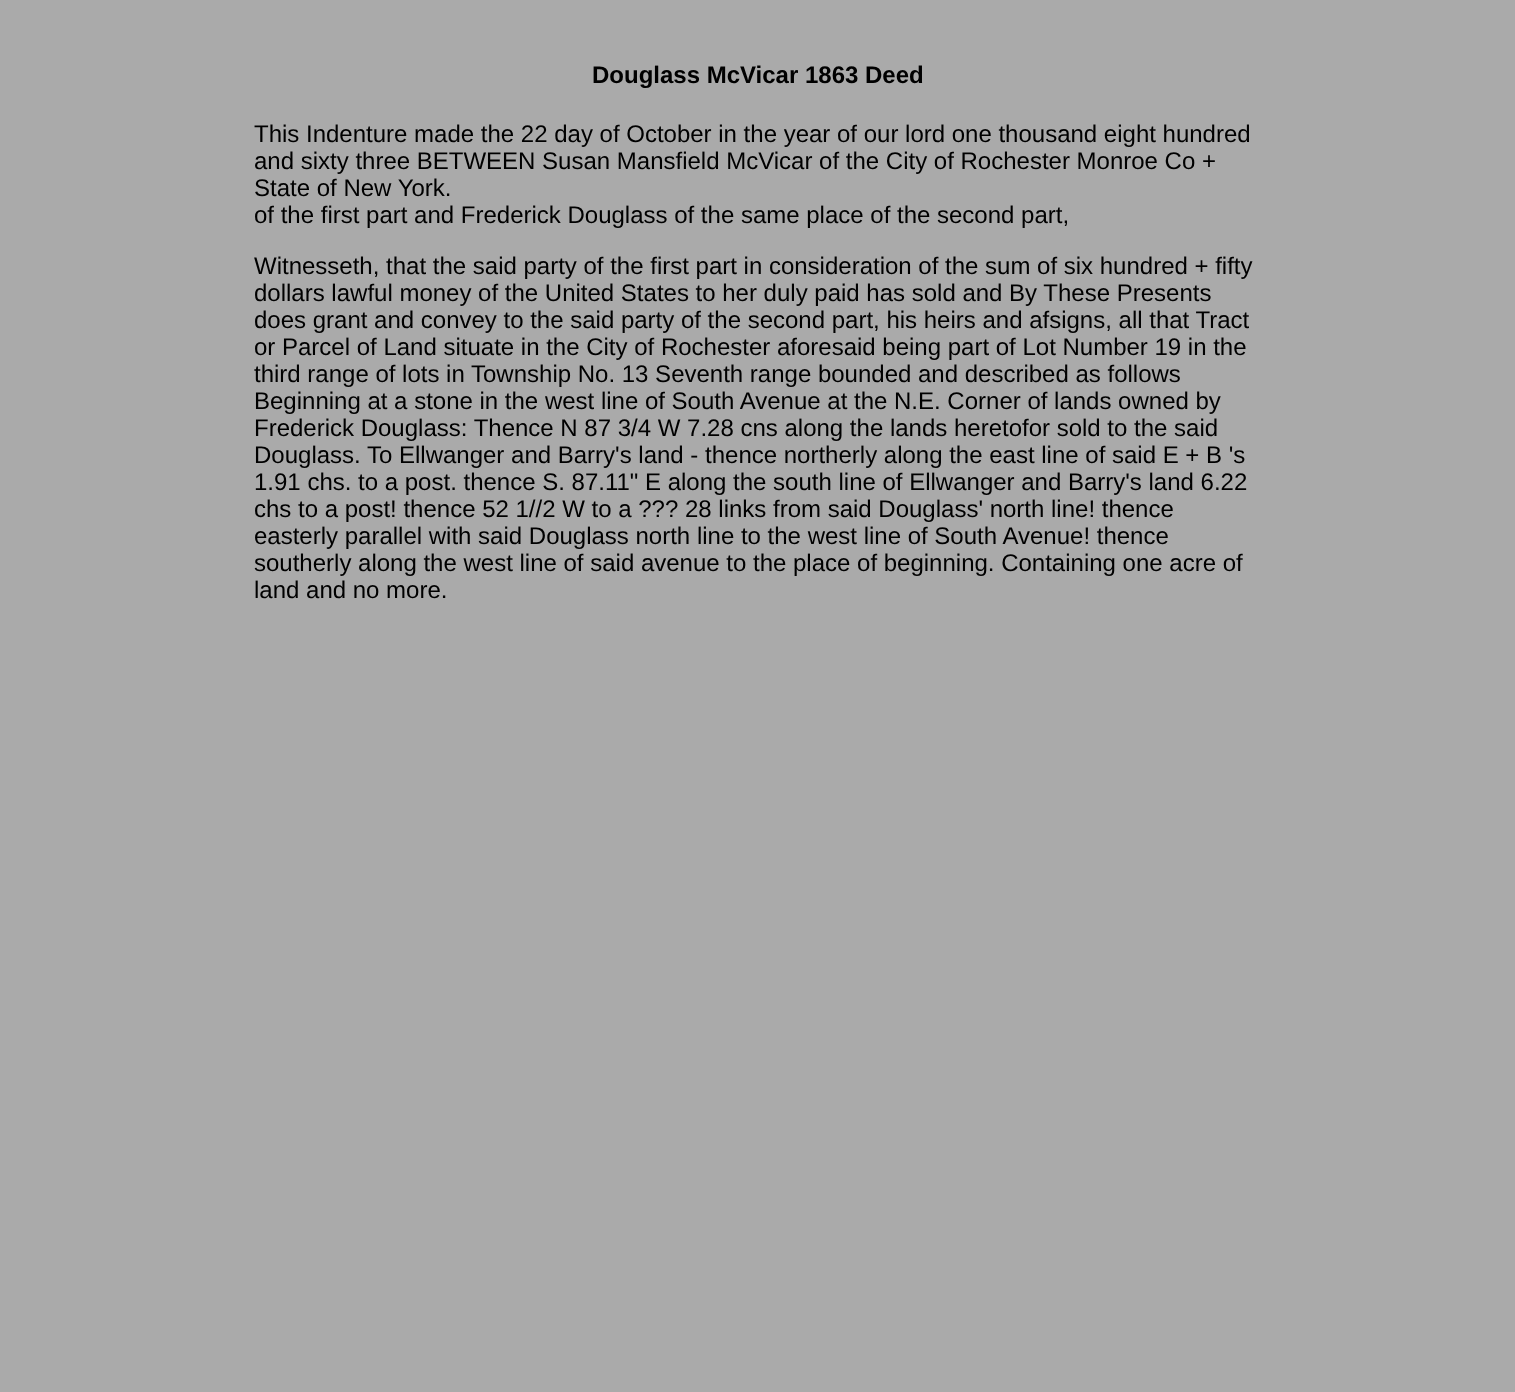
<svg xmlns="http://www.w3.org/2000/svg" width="1515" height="1392">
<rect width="100%" height="100%" fill="#aaa"/>
<text x="592" y="83" style="font-family:Liberation Sans;font-size:24px;font-weight:bold;fill:#000">Douglass McVicar 1863 Deed</text>
<text x="254" y="142" style="font-family:Liberation Sans;font-size:24px;fill:#000">This Indenture made the 22 day of October in the year of our lord one thousand eight hundred</text>
<text x="254" y="169" style="font-family:Liberation Sans;font-size:24px;fill:#000">and sixty three BETWEEN Susan Mansfield McVicar of the City of Rochester Monroe Co +</text>
<text x="254" y="196" style="font-family:Liberation Sans;font-size:24px;fill:#000">State of New York.</text>
<text x="254" y="223" style="font-family:Liberation Sans;font-size:24px;fill:#000">of the first part and Frederick Douglass of the same place of the second part,</text>
<text x="254" y="274" style="font-family:Liberation Sans;font-size:24px;fill:#000">Witnesseth, that the said party of the first part in consideration of the sum of six hundred + fifty</text>
<text x="254" y="301" style="font-family:Liberation Sans;font-size:24px;fill:#000">dollars lawful money of the United States to her duly paid has sold and By These Presents</text>
<text x="254" y="328" style="font-family:Liberation Sans;font-size:24px;fill:#000">does grant and convey to the said party of the second part, his heirs and afsigns, all that Tract</text>
<text x="254" y="355" style="font-family:Liberation Sans;font-size:24px;fill:#000">or Parcel of Land situate in the City of Rochester aforesaid being part of Lot Number 19 in the</text>
<text x="254" y="382" style="font-family:Liberation Sans;font-size:24px;fill:#000">third range of lots in Township No. 13 Seventh range bounded and described as follows</text>
<text x="254" y="409" style="font-family:Liberation Sans;font-size:24px;fill:#000">Beginning at a stone in the west line of South Avenue at the N.E. Corner of lands owned by</text>
<text x="254" y="436" style="font-family:Liberation Sans;font-size:24px;fill:#000">Frederick Douglass: Thence N 87 3/4 W 7.28 cns along the lands heretofor sold to the said</text>
<text x="254" y="463" style="font-family:Liberation Sans;font-size:24px;fill:#000">Douglass. To Ellwanger and Barry's land - thence northerly along the east line of said E + B 's</text>
<text x="254" y="490" style="font-family:Liberation Sans;font-size:24px;fill:#000">1.91 chs. to a post. thence S. 87.11" E along the south line of Ellwanger and Barry's land 6.22</text>
<text x="254" y="517" style="font-family:Liberation Sans;font-size:24px;fill:#000">chs to a post! thence 52 1//2 W to a ??? 28 links from said Douglass' north line! thence</text>
<text x="254" y="544" style="font-family:Liberation Sans;font-size:24px;fill:#000">easterly parallel with said Douglass north line to the west line of South Avenue! thence</text>
<text x="254" y="571" style="font-family:Liberation Sans;font-size:24px;fill:#000">southerly along the west line of said avenue to the place of beginning. Containing one acre of</text>
<text x="254" y="598" style="font-family:Liberation Sans;font-size:24px;fill:#000">land and no more.</text>
</svg>
